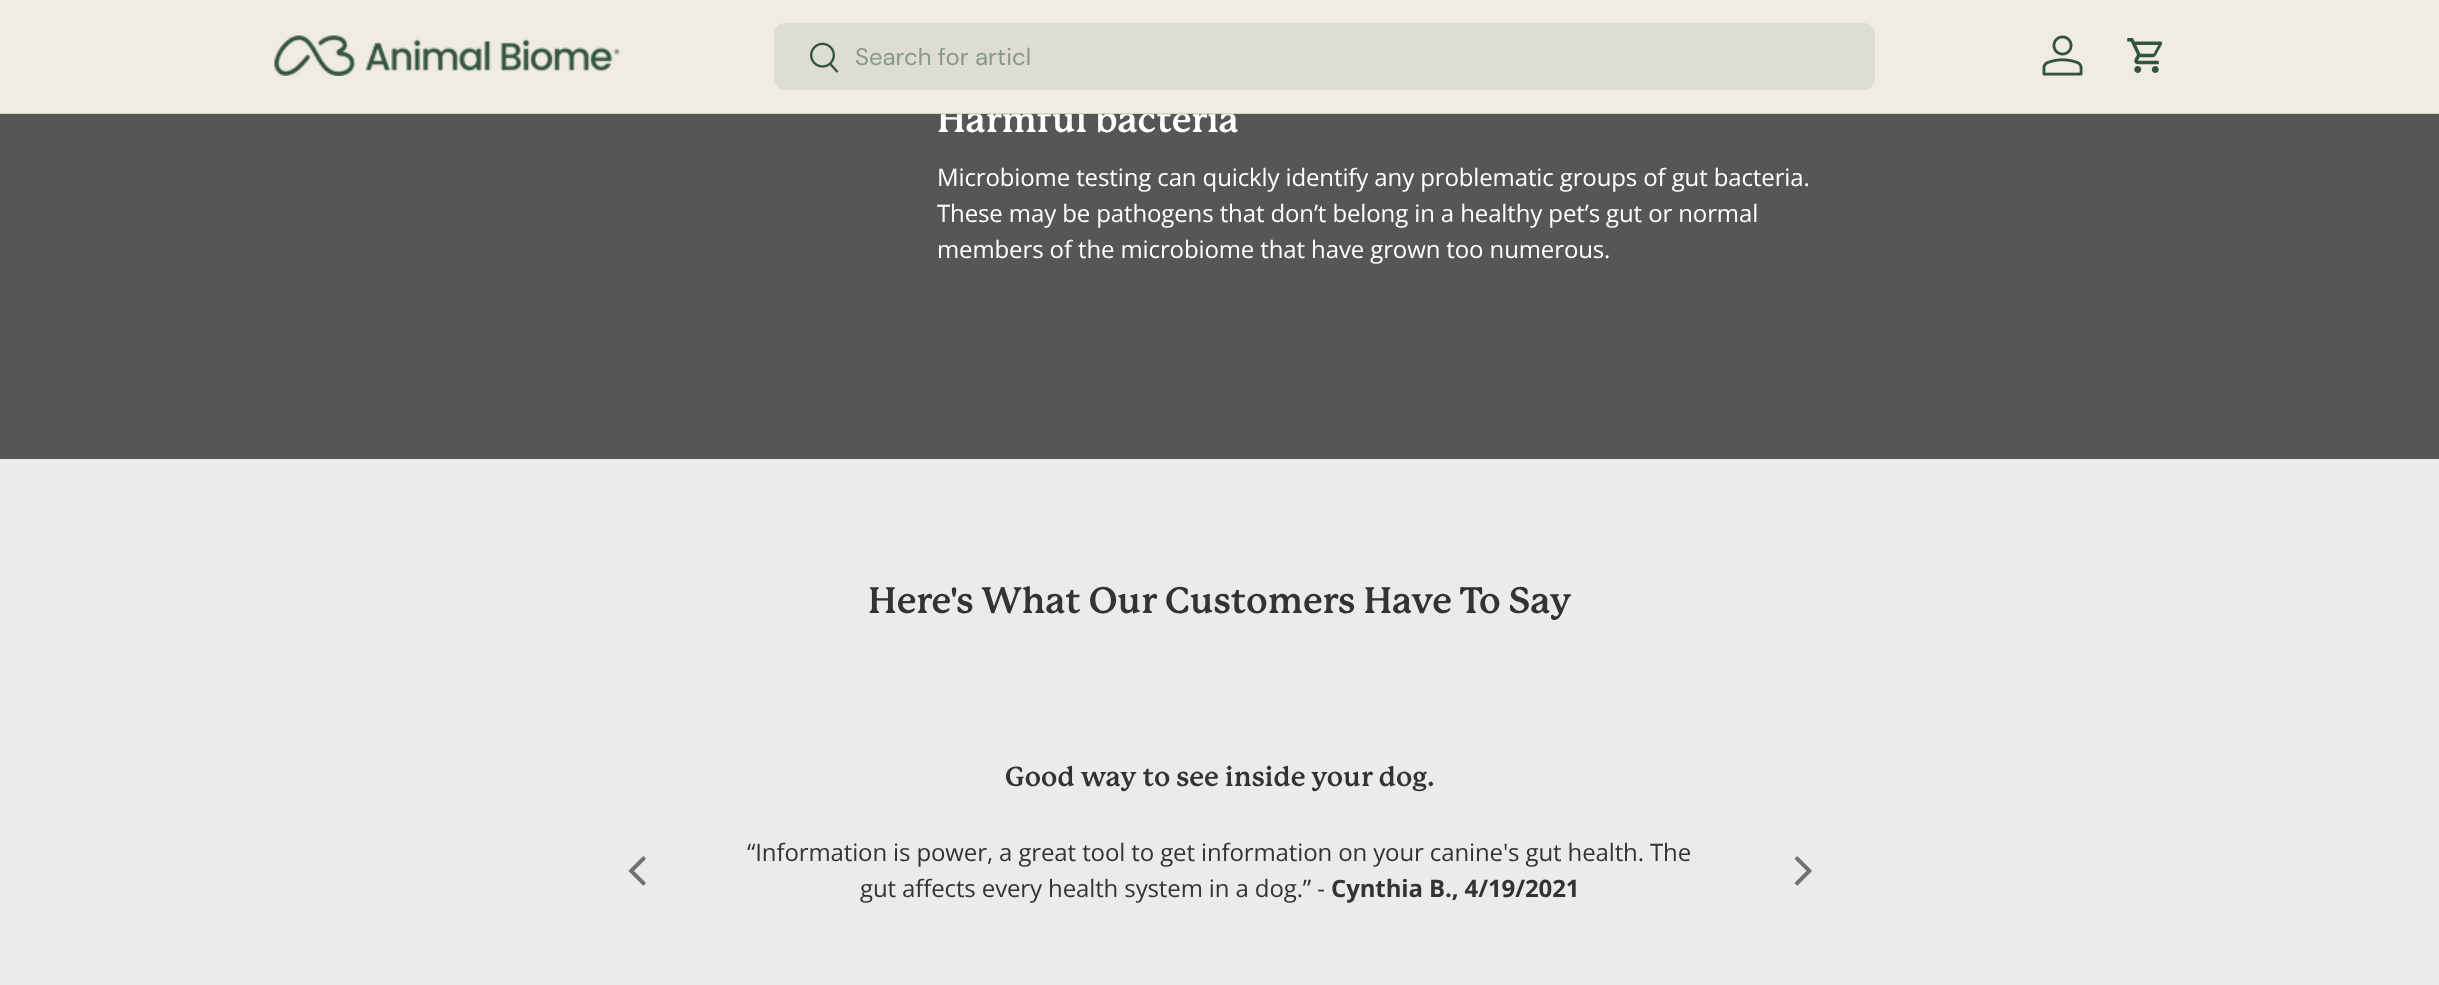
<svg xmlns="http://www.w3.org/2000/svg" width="2439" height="985">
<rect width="100%" height="100%" fill="#565656"/>
<text x="937" y="132" style="font-family:'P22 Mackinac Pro';font-size:36px;font-weight:bold;fill:#fff">Harmful bacteria</text>
<rect width="2439" height="114" fill="#f1ece3"/>
<rect y="113" width="2439" height="2" fill="#33534126"/>
<image x="274" y="35" width="346" height="41" href="media/1.png"/>
<rect x="774" y="23" width="1101" height="67" rx="11" fill="#deddd3"/>
<image x="810" y="42" width="29" height="31" href="media/2.png"/>
<text x="855" y="65" style="font-family:DM Sans;font-size:24px;fill:#89988a">Search for articl</text>
<image x="2042" y="35" width="41" height="41" href="media/3.png"/>
<image x="2127" y="38" width="36" height="35" href="media/4.png"/>
<text x="937" y="186" style="font-family:Open Sans;font-size:24px;letter-spacing:-0.12px;fill:#fff">Microbiome testing can quickly identify any problematic groups of gut bacteria.</text>
<text x="937" y="222" style="font-family:Open Sans;font-size:24px;letter-spacing:-0.12px;fill:#fff">These may be pathogens that don’t belong in a healthy pet’s gut or normal</text>
<text x="937" y="258" style="font-family:Open Sans;font-size:24px;letter-spacing:-0.12px;fill:#fff">members of the microbiome that have grown too numerous.</text>
<rect y="459" width="2439" height="526" fill="#ebebeb"/>
<text x="868" y="613" style="font-family:'P22 Mackinac Pro';font-size:36px;font-weight:bold;fill:#333">Here's What Our Customers Have To Say</text>
<image x="628" y="856" width="18" height="30" href="media/5.png"/>
<text x="1005" y="786" style="font-family:'P22 Mackinac Pro';font-size:27px;font-weight:bold;fill:#333">Good way to see inside your dog.</text>
<text x="747" y="861" style="font-family:Open Sans;font-size:24px;letter-spacing:-0.12px;fill:#333">“Information is power, a great tool to get information on your canine's gut health. The</text>
<text x="860" y="897" style="font-family:Open Sans;font-size:24px;letter-spacing:-0.12px;fill:#333">gut affects every health system in a dog.” -</text>
<text x="1331" y="897" style="font-family:Open Sans;font-size:24px;font-weight:bold;letter-spacing:-0.12px;fill:#333">Cynthia B., 4/19/2021</text>
<image x="1794" y="856" width="18" height="30" href="media/6.png"/>
</svg>
